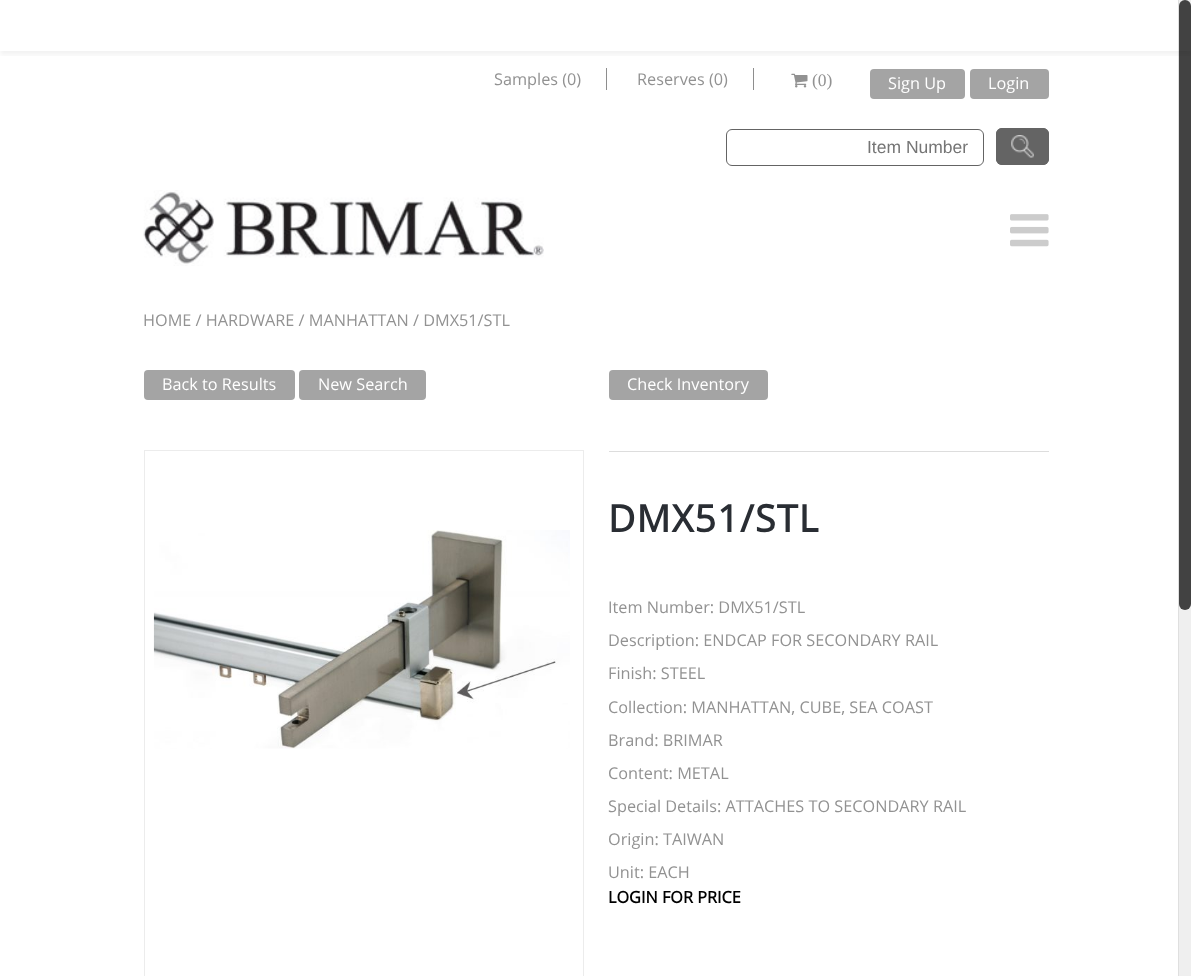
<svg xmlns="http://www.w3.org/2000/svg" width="1191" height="976">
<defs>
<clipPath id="clip1"><rect x="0" y="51" width="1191" height="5"/></clipPath>
</defs>
<rect width="100%" height="100%" fill="#fff"/>
<rect x="1179" width="12" height="976" fill="#efefef"/>
<rect x="1178" width="1" height="976" fill="#dfdfdf"/>
<rect x="1179" width="12" height="610" rx="6" fill="#424242"/>
<g clip-path="url(#clip1)">
<rect y="4" width="1191" height="51" fill="#0000000d" filter="blur(2.5px)"/>
</g>
<text x="494" y="85" style="font-family:Open Sans;font-size:16.25px;fill:#929292">Samples (0)</text>
<rect x="606" y="68" width="1" height="22" fill="#8e8e8e"/>
<text x="637" y="85" style="font-family:Open Sans;font-size:16.25px;fill:#929292">Reserves (0)</text>
<rect x="753" y="68" width="1" height="22" fill="#8e8e8e"/>
<image x="791" y="73" width="17" height="15" href="media/1.png"/>
<text x="812" y="86" style="font-family:Liberation Serif;font-size:17.5px;fill:#929292">(0)</text>
<rect x="870" y="69" width="95" height="30" rx="4" fill="#a4a4a4"/>
<text x="888" y="89" style="font-family:Open Sans;font-size:16.25px;fill:#fff">Sign Up</text>
<rect x="970" y="69" width="79" height="30" rx="4" fill="#a4a4a4"/>
<text x="988" y="89" style="font-family:Open Sans;font-size:16.25px;fill:#fff">Login</text>
<rect x="726.5" y="129.5" width="257" height="36" rx="5.5" fill="none" stroke="#646464"/>
<text x="867" y="153" style="font-family:Liberation Sans;font-size:17.5px;fill:#757575">Item Number</text>
<rect x="996" y="128" width="53" height="37" rx="6" fill="#646464"/>
<image x="1011" y="135" width="23" height="23" href="media/2.png"/>
<rect x="996.5" y="128.5" width="52" height="36" rx="5.5" fill="none" stroke="#646464"/>
<image x="143" y="190" width="401" height="76" href="media/3.png"/>
<image x="1010" y="214" width="39" height="33" href="media/4.png"/>
<text x="143" y="326" style="font-family:Open Sans;font-size:16.25px;fill:#929292">HOME / HARDWARE / MANHATTAN / DMX51/STL</text>
<rect x="144" y="370" width="151" height="30" rx="4" fill="#a4a4a4"/>
<text x="162" y="390" style="font-family:Open Sans;font-size:16.25px;fill:#fff">Back to Results</text>
<rect x="299" y="370" width="127" height="30" rx="4" fill="#a4a4a4"/>
<text x="318" y="390" style="font-family:Open Sans;font-size:16.25px;fill:#fff">New Search</text>
<rect x="144.5" y="450.5" width="439" height="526" fill="none" stroke="#ececec"/>
<image x="153" y="530" width="417" height="219" href="media/5.png"/>
<rect x="609" y="370" width="159" height="30" rx="4" fill="#a4a4a4"/>
<text x="627" y="390" style="font-family:Open Sans;font-size:16.25px;fill:#fff">Check Inventory</text>
<rect x="609" y="451" width="440" height="1" fill="#ddd"/>
<text x="608" y="532" style="font-family:Open Sans;font-size:37.5px;font-weight:bold;letter-spacing:1.25px;fill:#292d33">DMX51/STL</text>
<text x="608" y="613" style="font-family:Open Sans;font-size:16.25px;fill:#929292">Item Number: DMX51/STL</text>
<text x="608" y="646" style="font-family:Open Sans;font-size:16.25px;fill:#929292">Description: ENDCAP FOR SECONDARY RAIL</text>
<text x="608" y="679" style="font-family:Open Sans;font-size:16.25px;fill:#929292">Finish: STEEL</text>
<text x="608" y="713" style="font-family:Open Sans;font-size:16.25px;fill:#929292">Collection: MANHATTAN, CUBE, SEA COAST</text>
<text x="608" y="746" style="font-family:Open Sans;font-size:16.25px;fill:#929292">Brand: BRIMAR</text>
<text x="608" y="779" style="font-family:Open Sans;font-size:16.25px;fill:#929292">Content: METAL</text>
<text x="608" y="812" style="font-family:Open Sans;font-size:16.25px;fill:#929292">Special Details: ATTACHES TO SECONDARY RAIL</text>
<text x="608" y="845" style="font-family:Open Sans;font-size:16.25px;fill:#929292">Origin: TAIWAN</text>
<text x="608" y="878" style="font-family:Open Sans;font-size:16.25px;fill:#929292">Unit: EACH</text>
<text x="608" y="903" style="font-family:Open Sans;font-size:16.25px;font-weight:bold;fill:#000">LOGIN FOR PRICE</text>
</svg>
